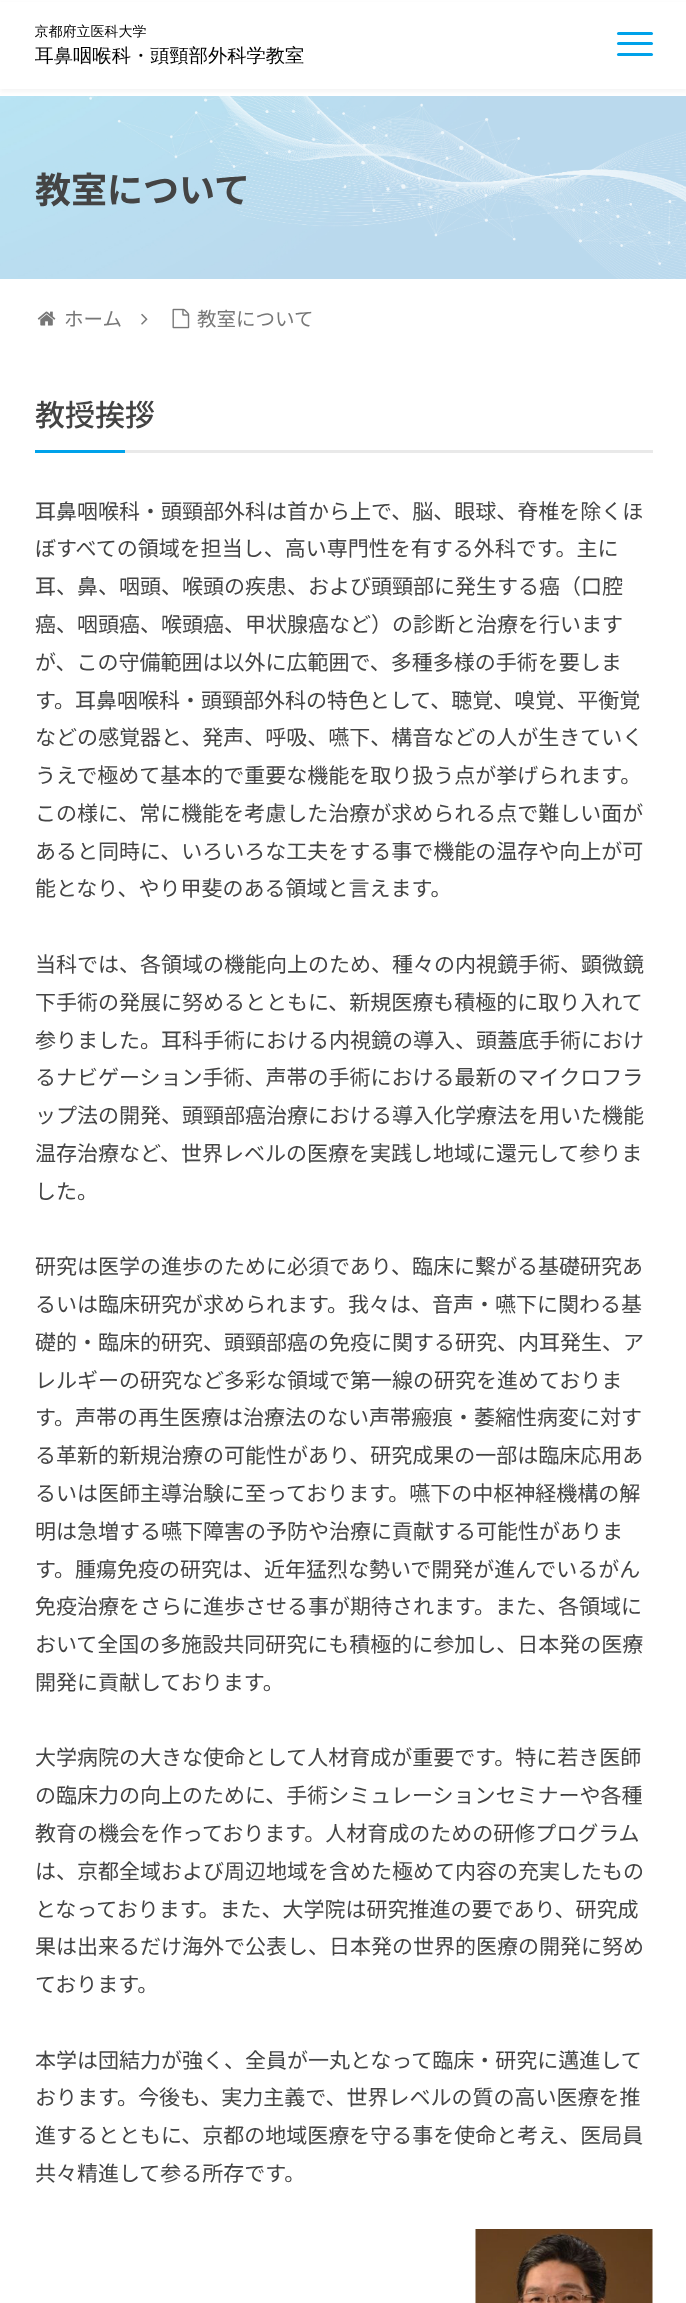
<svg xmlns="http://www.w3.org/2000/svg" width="686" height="2303">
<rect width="100%" height="100%" fill="#fff"/>
<image x="0" y="96" width="686" height="183" href="media/2.png"/>
<rect y="3" width="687" height="89" fill="#0000000a" filter="blur(2px)"/>
<rect y="2" width="686" height="87" fill="#fff"/>
<image x="35" y="24" width="269" height="41" href="media/1.png"/>
<rect x="617" y="32" width="36" height="3" rx="1.5" fill="#00a2ea"/>
<rect x="617" y="42" width="36" height="3" rx="1.5" fill="#00a2ea"/>
<rect x="617" y="53" width="36" height="3" rx="1.5" fill="#00a2ea"/>
<text x="35" y="203" style="font-family:Noto Sans JP;font-size:36px;font-weight:bold;fill:#444">教室について</text>
<image x="37" y="311" width="19" height="15" href="media/3.png"/>
<text x="64" y="326" style="font-family:Noto Sans JP;font-size:19.5px;fill:#777">ホーム</text>
<image x="141" y="313" width="7" height="12" href="media/4.png"/>
<image x="172" y="308" width="18" height="21" href="media/5.png"/>
<text x="197" y="326" style="font-family:Noto Sans JP;font-size:19.5px;fill:#777">教室について</text>
<rect x="125" y="450" width="528" height="3" fill="#e9e9e9"/>
<text x="35" y="426" style="font-family:Noto Sans JP;font-size:30px;font-weight:500;fill:#444">教授挨拶</text>
<rect x="35" y="450" width="90" height="3" fill="#00a2ea"/>
<text x="35" y="519" style="font-family:Noto Sans JP;font-size:21px;fill:#444">耳鼻咽喉科・頭頸部外科は首から上で、脳、眼球、脊椎を除くほ</text>
<text x="35" y="556" style="font-family:Noto Sans JP;font-size:21px;fill:#444">ぼすべての領域を担当し、高い専門性を有する外科です。主に</text>
<text x="35" y="594" style="font-family:Noto Sans JP;font-size:21px;fill:#444">耳、鼻、咽頭、喉頭の疾患、および頭頸部に発生する癌（口腔</text>
<text x="35" y="632" style="font-family:Noto Sans JP;font-size:21px;fill:#444">癌、咽頭癌、喉頭癌、甲状腺癌など）の診断と治療を行います</text>
<text x="35" y="670" style="font-family:Noto Sans JP;font-size:21px;fill:#444">が、この守備範囲は以外に広範囲で、多種多様の手術を要しま</text>
<text x="35" y="708" style="font-family:Noto Sans JP;font-size:21px;fill:#444">す。耳鼻咽喉科・頭頸部外科の特色として、聴覚、嗅覚、平衡覚</text>
<text x="35" y="745" style="font-family:Noto Sans JP;font-size:21px;fill:#444">などの感覚器と、発声、呼吸、嚥下、構音などの人が生きていく</text>
<text x="35" y="783" style="font-family:Noto Sans JP;font-size:21px;fill:#444">うえで極めて基本的で重要な機能を取り扱う点が挙げられます。</text>
<text x="35" y="821" style="font-family:Noto Sans JP;font-size:21px;fill:#444">この様に、常に機能を考慮した治療が求められる点で難しい面が</text>
<text x="35" y="859" style="font-family:Noto Sans JP;font-size:21px;fill:#444">あると同時に、いろいろな工夫をする事で機能の温存や向上が可</text>
<text x="35" y="896" style="font-family:Noto Sans JP;font-size:21px;fill:#444">能となり、やり甲斐のある領域と言えます。</text>
<text x="35" y="972" style="font-family:Noto Sans JP;font-size:21px;fill:#444">当科では、各領域の機能向上のため、種々の内視鏡手術、顕微鏡</text>
<text x="35" y="1010" style="font-family:Noto Sans JP;font-size:21px;fill:#444">下手術の発展に努めるとともに、新規医療も積極的に取り入れて</text>
<text x="35" y="1048" style="font-family:Noto Sans JP;font-size:21px;fill:#444">参りました。耳科手術における内視鏡の導入、頭蓋底手術におけ</text>
<text x="35" y="1085" style="font-family:Noto Sans JP;font-size:21px;fill:#444">るナビゲーション手術、声帯の手術における最新のマイクロフラ</text>
<text x="35" y="1123" style="font-family:Noto Sans JP;font-size:21px;fill:#444">ップ法の開発、頭頸部癌治療における導入化学療法を用いた機能</text>
<text x="35" y="1161" style="font-family:Noto Sans JP;font-size:21px;fill:#444">温存治療など、世界レベルの医療を実践し地域に還元して参りま</text>
<text x="35" y="1199" style="font-family:Noto Sans JP;font-size:21px;fill:#444">した。</text>
<text x="35" y="1274" style="font-family:Noto Sans JP;font-size:21px;fill:#444">研究は医学の進歩のために必須であり、臨床に繋がる基礎研究あ</text>
<text x="35" y="1312" style="font-family:Noto Sans JP;font-size:21px;fill:#444">るいは臨床研究が求められます。我々は、音声・嚥下に関わる基</text>
<text x="35" y="1350" style="font-family:Noto Sans JP;font-size:21px;fill:#444">礎的・臨床的研究、頭頸部癌の免疫に関する研究、内耳発生、ア</text>
<text x="35" y="1388" style="font-family:Noto Sans JP;font-size:21px;fill:#444">レルギーの研究など多彩な領域で第一線の研究を進めておりま</text>
<text x="35" y="1425" style="font-family:Noto Sans JP;font-size:21px;fill:#444">す。声帯の再生医療は治療法のない声帯瘢痕・萎縮性病変に対す</text>
<text x="35" y="1463" style="font-family:Noto Sans JP;font-size:21px;fill:#444">る革新的新規治療の可能性があり、研究成果の一部は臨床応用あ</text>
<text x="35" y="1501" style="font-family:Noto Sans JP;font-size:21px;fill:#444">るいは医師主導治験に至っております。嚥下の中枢神経機構の解</text>
<text x="35" y="1539" style="font-family:Noto Sans JP;font-size:21px;fill:#444">明は急増する嚥下障害の予防や治療に貢献する可能性がありま</text>
<text x="35" y="1577" style="font-family:Noto Sans JP;font-size:21px;fill:#444">す。腫瘍免疫の研究は、近年猛烈な勢いで開発が進んでいるがん</text>
<text x="35" y="1614" style="font-family:Noto Sans JP;font-size:21px;fill:#444">免疫治療をさらに進歩させる事が期待されます。また、各領域に</text>
<text x="35" y="1652" style="font-family:Noto Sans JP;font-size:21px;fill:#444">おいて全国の多施設共同研究にも積極的に参加し、日本発の医療</text>
<text x="35" y="1690" style="font-family:Noto Sans JP;font-size:21px;fill:#444">開発に貢献しております。</text>
<text x="35" y="1765" style="font-family:Noto Sans JP;font-size:21px;fill:#444">大学病院の大きな使命として人材育成が重要です。特に若き医師</text>
<text x="35" y="1803" style="font-family:Noto Sans JP;font-size:21px;fill:#444">の臨床力の向上のために、手術シミュレーションセミナーや各種</text>
<text x="35" y="1841" style="font-family:Noto Sans JP;font-size:21px;fill:#444">教育の機会を作っております。人材育成のための研修プログラム</text>
<text x="35" y="1879" style="font-family:Noto Sans JP;font-size:21px;fill:#444">は、京都全域および周辺地域を含めた極めて内容の充実したもの</text>
<text x="35" y="1917" style="font-family:Noto Sans JP;font-size:21px;fill:#444">となっております。また、大学院は研究推進の要であり、研究成</text>
<text x="35" y="1954" style="font-family:Noto Sans JP;font-size:21px;fill:#444">果は出来るだけ海外で公表し、日本発の世界的医療の開発に努め</text>
<text x="35" y="1992" style="font-family:Noto Sans JP;font-size:21px;fill:#444">ております。</text>
<text x="35" y="2068" style="font-family:Noto Sans JP;font-size:21px;fill:#444">本学は団結力が強く、全員が一丸となって臨床・研究に邁進して</text>
<text x="35" y="2105" style="font-family:Noto Sans JP;font-size:21px;fill:#444">おります。今後も、実力主義で、世界レベルの質の高い医療を推</text>
<text x="35" y="2143" style="font-family:Noto Sans JP;font-size:21px;fill:#444">進するとともに、京都の地域医療を守る事を使命と考え、医局員</text>
<text x="35" y="2181" style="font-family:Noto Sans JP;font-size:21px;fill:#444">共々精進して参る所存です。</text>
<image x="475" y="2229" width="178" height="74" href="media/6.png"/>
</svg>
